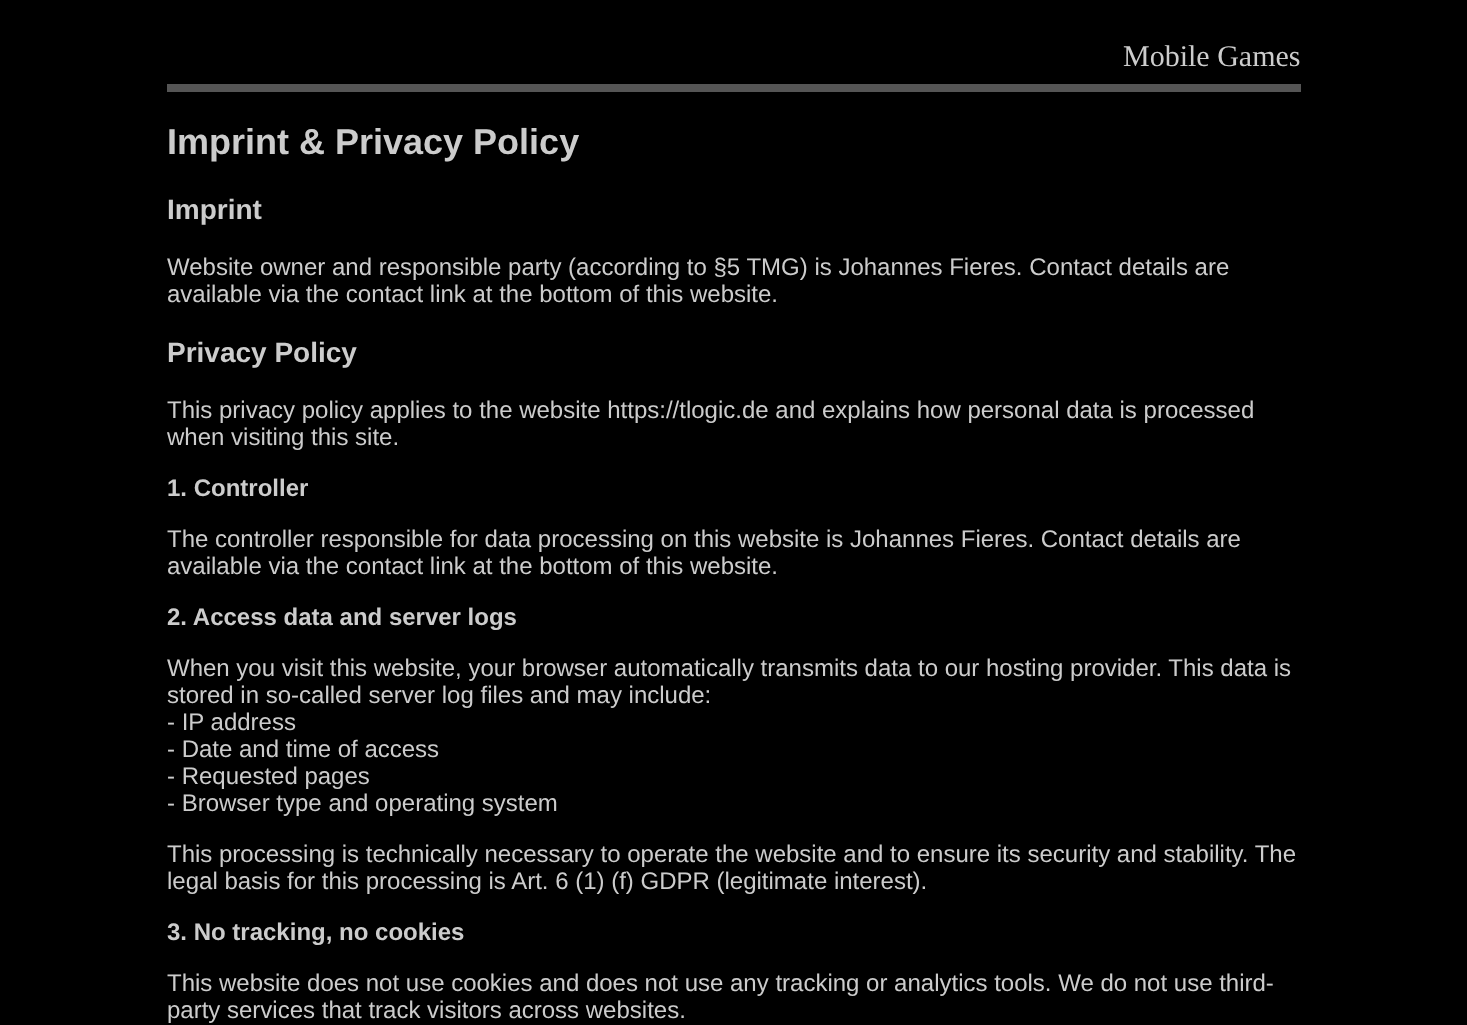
<svg xmlns="http://www.w3.org/2000/svg" width="1467" height="1025">
<rect width="100%" height="100%" fill="#000"/>
<text x="1123" y="66" style="font-family:Liberation Serif;font-size:30px;fill:#ccc">Mobile Games</text>
<rect x="167" y="84" width="1134" height="8" fill="#555"/>
<text x="167" y="154" style="font-family:Liberation Sans;font-size:36px;font-weight:bold;fill:#ccc">Imprint &amp; Privacy Policy</text>
<text x="167" y="219" style="font-family:Liberation Sans;font-size:28px;font-weight:bold;fill:#ccc">Imprint</text>
<text x="167" y="275" style="font-family:Liberation Sans;font-size:24px;fill:#ccc">Website owner and responsible party (according to §5 TMG) is Johannes Fieres. Contact details are</text>
<text x="167" y="302" style="font-family:Liberation Sans;font-size:24px;fill:#ccc">available via the contact link at the bottom of this website.</text>
<text x="167" y="362" style="font-family:Liberation Sans;font-size:28px;font-weight:bold;fill:#ccc">Privacy Policy</text>
<text x="167" y="418" style="font-family:Liberation Sans;font-size:24px;fill:#ccc">This privacy policy applies to the website https://tlogic.de and explains how personal data is processed</text>
<text x="167" y="445" style="font-family:Liberation Sans;font-size:24px;fill:#ccc">when visiting this site.</text>
<text x="167" y="496" style="font-family:Liberation Sans;font-size:24px;font-weight:bold;fill:#ccc">1. Controller</text>
<text x="167" y="547" style="font-family:Liberation Sans;font-size:24px;fill:#ccc">The controller responsible for data processing on this website is Johannes Fieres. Contact details are</text>
<text x="167" y="574" style="font-family:Liberation Sans;font-size:24px;fill:#ccc">available via the contact link at the bottom of this website.</text>
<text x="167" y="625" style="font-family:Liberation Sans;font-size:24px;font-weight:bold;fill:#ccc">2. Access data and server logs</text>
<text x="167" y="676" style="font-family:Liberation Sans;font-size:24px;fill:#ccc">When you visit this website, your browser automatically transmits data to our hosting provider. This data is</text>
<text x="167" y="703" style="font-family:Liberation Sans;font-size:24px;fill:#ccc">stored in so-called server log files and may include:</text>
<text x="167" y="730" style="font-family:Liberation Sans;font-size:24px;fill:#ccc">- IP address</text>
<text x="167" y="757" style="font-family:Liberation Sans;font-size:24px;fill:#ccc">- Date and time of access</text>
<text x="167" y="784" style="font-family:Liberation Sans;font-size:24px;fill:#ccc">- Requested pages</text>
<text x="167" y="811" style="font-family:Liberation Sans;font-size:24px;fill:#ccc">- Browser type and operating system</text>
<text x="167" y="862" style="font-family:Liberation Sans;font-size:24px;fill:#ccc">This processing is technically necessary to operate the website and to ensure its security and stability. The</text>
<text x="167" y="889" style="font-family:Liberation Sans;font-size:24px;fill:#ccc">legal basis for this processing is Art. 6 (1) (f) GDPR (legitimate interest).</text>
<text x="167" y="940" style="font-family:Liberation Sans;font-size:24px;font-weight:bold;fill:#ccc">3. No tracking, no cookies</text>
<text x="167" y="991" style="font-family:Liberation Sans;font-size:24px;fill:#ccc">This website does not use cookies and does not use any tracking or analytics tools. We do not use third-</text>
<text x="167" y="1018" style="font-family:Liberation Sans;font-size:24px;fill:#ccc">party services that track visitors across websites.</text>
</svg>
